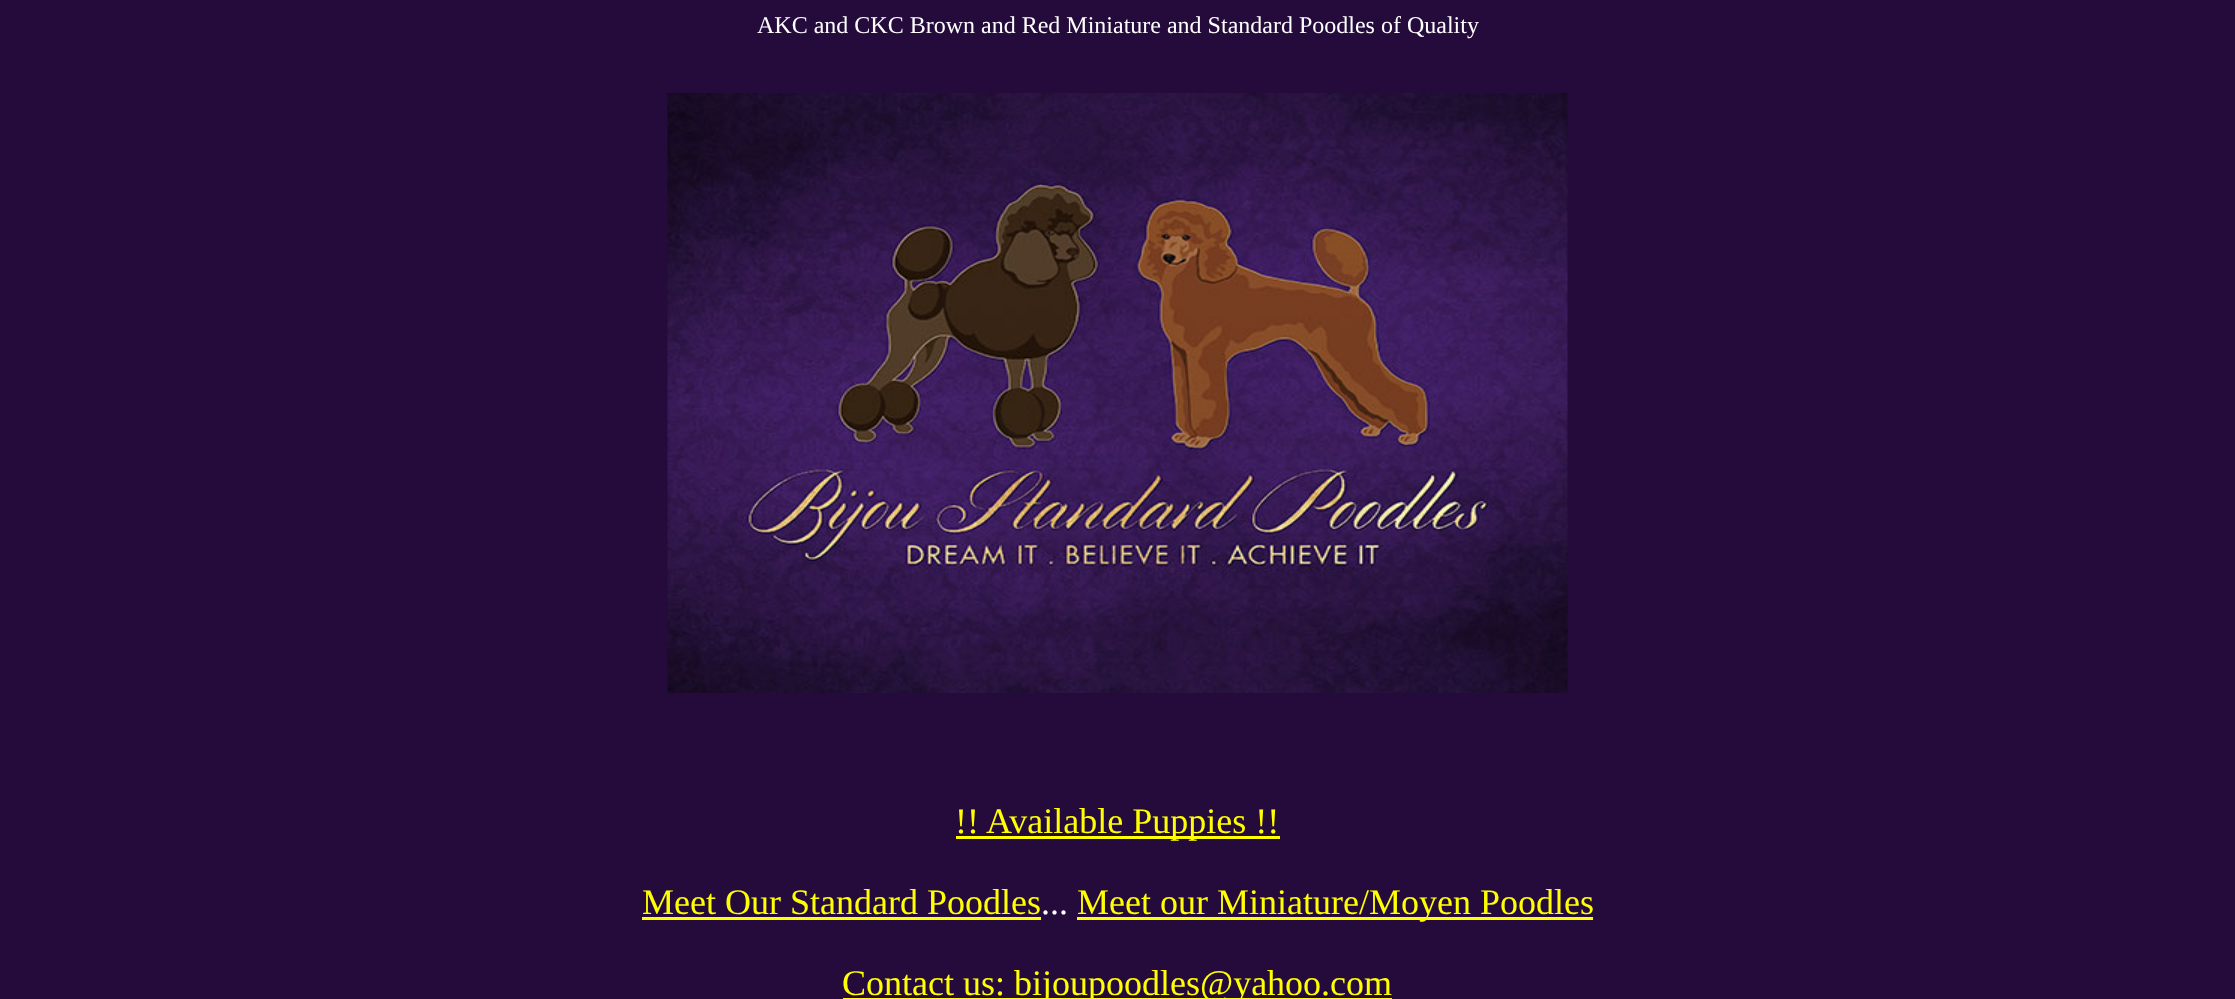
<svg xmlns="http://www.w3.org/2000/svg" width="2235" height="999">
<rect width="100%" height="100%" fill="#240b3b"/>
<text x="757" y="33" style="font-family:Liberation Serif;font-size:24px;fill:#fff">AKC and CKC Brown and Red Miniature and Standard Poodles of Quality</text>
<image x="667" y="93" width="901" height="600" href="media/1.png"/>
<rect x="956" y="836" width="324" height="3" fill="#ff0"/>
<text x="955" y="833" style="font-family:Liberation Serif;font-size:36px;fill:#ff0">!! Available Puppies !!</text>
<text x="642" y="914" style="font-family:Liberation Serif;font-size:36px;fill:#ff0">Meet Our Standard Poodles</text>
<text x="1041" y="914" style="font-family:Liberation Serif;font-size:36px;fill:#fff">...</text>
<rect x="642" y="917" width="399" height="3" fill="#ff0"/>
<rect x="1077" y="917" width="516" height="3" fill="#ff0"/>
<text x="1077" y="914" style="font-family:Liberation Serif;font-size:36px;fill:#ff0">Meet our Miniature/Moyen Poodles</text>
<rect x="843" y="998" width="549" height="1" fill="#ff0"/>
<text x="842" y="995" style="font-family:Liberation Serif;font-size:36px;fill:#ff0">Contact us: bijoupoodles@yahoo.com</text>
</svg>
